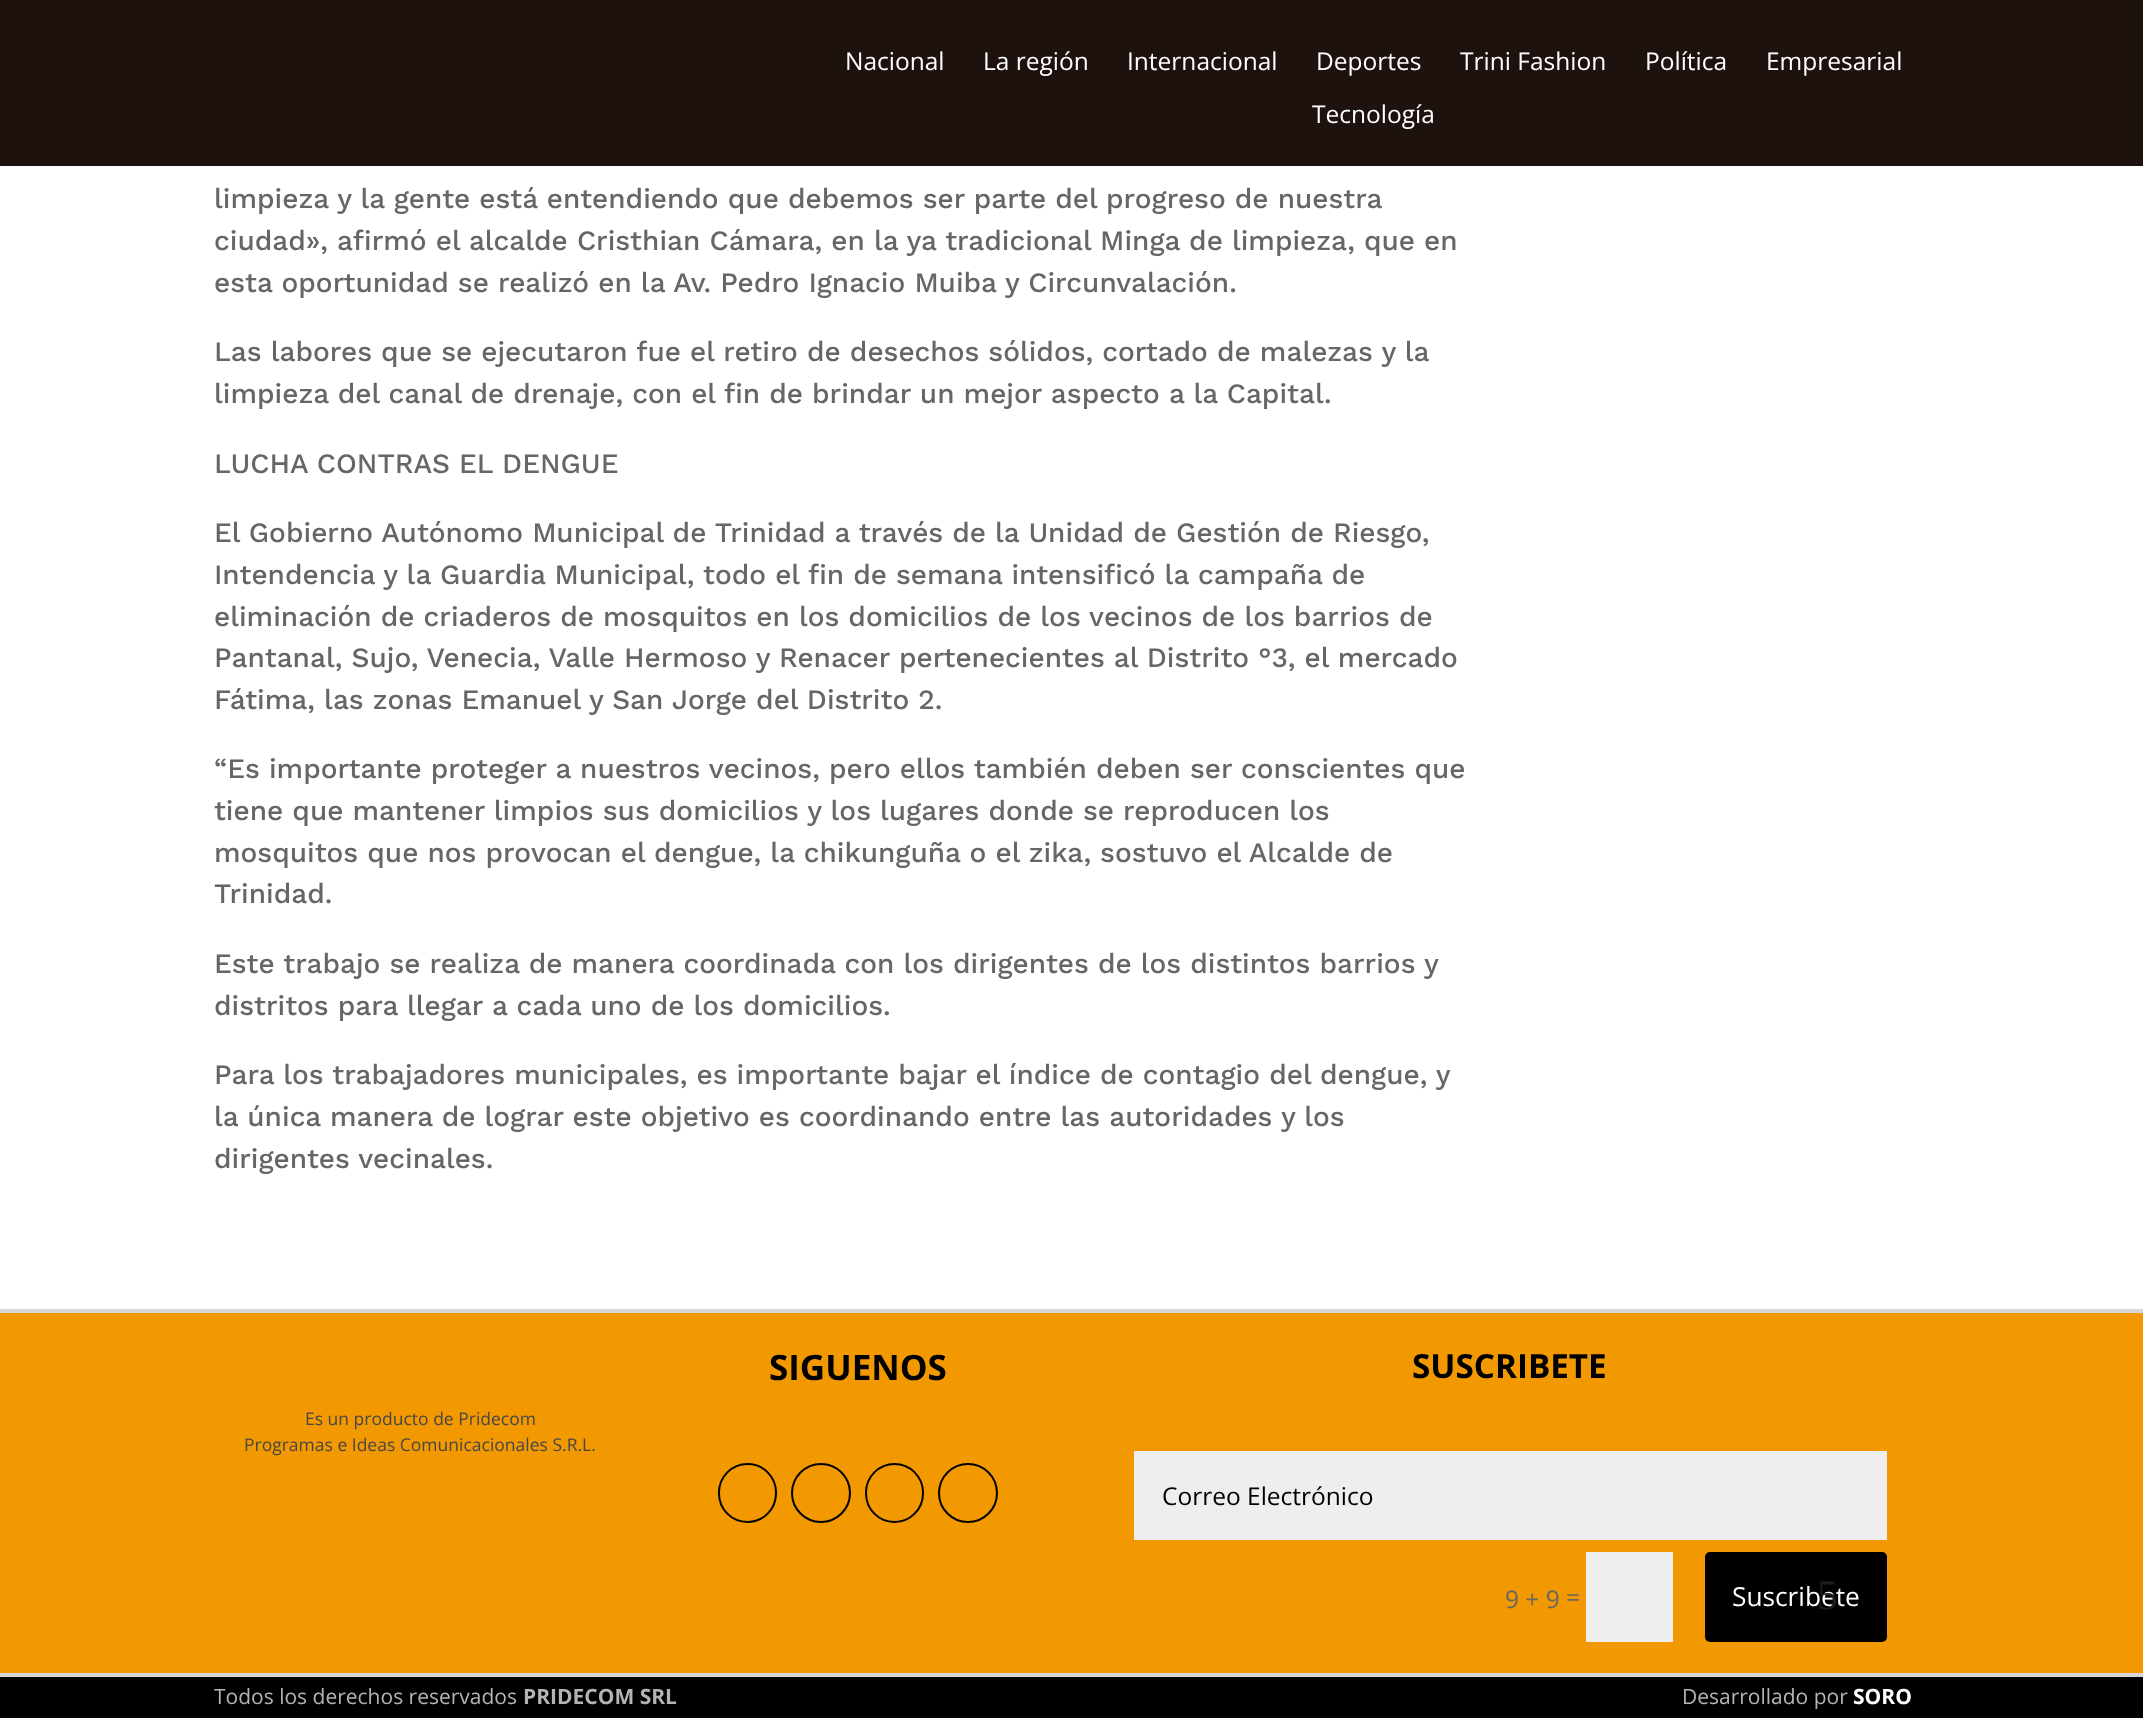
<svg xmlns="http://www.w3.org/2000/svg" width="2143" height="1718">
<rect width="100%" height="100%" fill="#fff"/>
<rect width="2143" height="166" fill="#1e120e"/>
<text x="845" y="70" style="font-family:Open Sans;font-size:24.5px;fill:#fff">Nacional</text>
<text x="983" y="70" style="font-family:Open Sans;font-size:24.5px;fill:#fff">La región</text>
<text x="1127" y="70" style="font-family:Open Sans;font-size:24.5px;fill:#fff">Internacional</text>
<text x="1316" y="70" style="font-family:Open Sans;font-size:24.5px;fill:#fff">Deportes</text>
<text x="1460" y="70" style="font-family:Open Sans;font-size:24.5px;fill:#fff">Trini Fashion</text>
<text x="1645" y="70" style="font-family:Open Sans;font-size:24.5px;fill:#fff">Política</text>
<text x="1766" y="70" style="font-family:Open Sans;font-size:24.5px;fill:#fff">Empresarial</text>
<text x="1312" y="123" style="font-family:Open Sans;font-size:24.5px;fill:#fff">Tecnología</text>
<text x="214" y="208" style="font-family:Work Sans;font-size:28px;font-weight:500;fill:#666">limpieza y la gente está entendiendo que debemos ser parte del progreso de nuestra</text>
<text x="214" y="250" style="font-family:Work Sans;font-size:28px;font-weight:500;fill:#666">ciudad», afirmó el alcalde Cristhian Cámara, en la ya tradicional Minga de limpieza, que en</text>
<text x="214" y="292" style="font-family:Work Sans;font-size:28px;font-weight:500;fill:#666">esta oportunidad se realizó en la Av. Pedro Ignacio Muiba y Circunvalación.</text>
<text x="214" y="361" style="font-family:Work Sans;font-size:28px;font-weight:500;fill:#666">Las labores que se ejecutaron fue el retiro de desechos sólidos, cortado de malezas y la</text>
<text x="214" y="403" style="font-family:Work Sans;font-size:28px;font-weight:500;fill:#666">limpieza del canal de drenaje, con el fin de brindar un mejor aspecto a la Capital.</text>
<text x="214" y="473" style="font-family:Work Sans;font-size:28px;font-weight:500;fill:#666">LUCHA CONTRAS EL DENGUE</text>
<text x="214" y="542" style="font-family:Work Sans;font-size:28px;font-weight:500;fill:#666">El Gobierno Autónomo Municipal de Trinidad a través de la Unidad de Gestión de Riesgo,</text>
<text x="214" y="584" style="font-family:Work Sans;font-size:28px;font-weight:500;fill:#666">Intendencia y la Guardia Municipal, todo el fin de semana intensificó la campaña de</text>
<text x="214" y="626" style="font-family:Work Sans;font-size:28px;font-weight:500;fill:#666">eliminación de criaderos de mosquitos en los domicilios de los vecinos de los barrios de</text>
<text x="214" y="667" style="font-family:Work Sans;font-size:28px;font-weight:500;fill:#666">Pantanal, Sujo, Venecia, Valle Hermoso y Renacer pertenecientes al Distrito °3, el mercado</text>
<text x="214" y="709" style="font-family:Work Sans;font-size:28px;font-weight:500;fill:#666">Fátima, las zonas Emanuel y San Jorge del Distrito 2.</text>
<text x="214" y="778" style="font-family:Work Sans;font-size:28px;font-weight:500;fill:#666">“Es importante proteger a nuestros vecinos, pero ellos también deben ser conscientes que</text>
<text x="214" y="820" style="font-family:Work Sans;font-size:28px;font-weight:500;fill:#666">tiene que mantener limpios sus domicilios y los lugares donde se reproducen los</text>
<text x="214" y="862" style="font-family:Work Sans;font-size:28px;font-weight:500;fill:#666">mosquitos que nos provocan el dengue, la chikunguña o el zika, sostuvo el Alcalde de</text>
<text x="214" y="903" style="font-family:Work Sans;font-size:28px;font-weight:500;fill:#666">Trinidad.</text>
<text x="214" y="973" style="font-family:Work Sans;font-size:28px;font-weight:500;fill:#666">Este trabajo se realiza de manera coordinada con los dirigentes de los distintos barrios y</text>
<text x="214" y="1015" style="font-family:Work Sans;font-size:28px;font-weight:500;fill:#666">distritos para llegar a cada uno de los domicilios.</text>
<text x="214" y="1084" style="font-family:Work Sans;font-size:28px;font-weight:500;fill:#666">Para los trabajadores municipales, es importante bajar el índice de contagio del dengue, y</text>
<text x="214" y="1126" style="font-family:Work Sans;font-size:28px;font-weight:500;fill:#666">la única manera de lograr este objetivo es coordinando entre las autoridades y los</text>
<text x="214" y="1168" style="font-family:Work Sans;font-size:28px;font-weight:500;fill:#666">dirigentes vecinales.</text>
<rect y="1313" width="2143" height="360" fill="#f29800"/>
<rect y="1309" width="2143" height="4" fill="#d6d6d6"/>
<text x="769" y="1380" style="font-family:Open Sans;font-size:35px;font-weight:bold;fill:#000">SIGUENOS</text>
<rect x="719" y="1464" width="57" height="58" rx="28.5" fill="none" stroke="#000" stroke-width="2"/>
<circle cx="821" cy="1493" r="29" fill="none" stroke="#000" stroke-width="2"/>
<rect x="866" y="1464" width="57" height="58" rx="28.5" fill="none" stroke="#000" stroke-width="2"/>
<circle cx="968" cy="1493" r="29" fill="none" stroke="#000" stroke-width="2"/>
<text x="1412" y="1378" style="font-family:Open Sans;font-size:33.25px;font-weight:bold;fill:#000">SUSCRIBETE</text>
<rect x="1134" y="1451" width="753" height="89" fill="#eee"/>
<text x="1162" y="1505" style="font-family:Open Sans;font-size:24.5px;fill:#000">Correo Electrónico</text>
<text x="1505" y="1608" style="font-family:Open Sans;font-size:24.5px;fill:#666">9 + 9</text>
<text x="1566" y="1606" style="font-family:Open Sans;font-size:24.5px;fill:#666">=</text>
<rect x="1586" y="1552" width="87" height="90" fill="#eee"/>
<rect x="1705" y="1552" width="182" height="90" rx="5" fill="#000"/>
<text x="1732" y="1606" style="font-family:Open Sans;font-size:26.25px;fill:#fff">Suscribete</text>
<text x="1817" y="1609" style="font-family:Liberation Serif;font-size:42px;fill:#1d1d1d">5</text>
<text x="305" y="1425" style="font-family:Open Sans;font-size:17.5px;fill:#474747">Es un producto de Pridecom</text>
<text x="244" y="1451" style="font-family:Open Sans;font-size:17.5px;fill:#474747">Programas e Ideas Comunicacionales S.R.L.</text>
<rect y="1677" width="2143" height="41" fill="#000"/>
<rect y="1673" width="2143" height="4" fill="#d6d6d6"/>
<text x="214" y="1704" style="font-family:Open Sans;font-size:21px;fill:#b3b3b3">Todos los derechos reservados</text>
<text x="523" y="1704" style="font-family:Open Sans;font-size:21px;font-weight:bold;fill:#b3b3b3">PRIDECOM SRL</text>
<text x="1682" y="1704" style="font-family:Open Sans;font-size:21px;fill:#b3b3b3">Desarrollado por</text>
<text x="1853" y="1704" style="font-family:Open Sans;font-size:21px;font-weight:bold;fill:#fff">SORO</text>
</svg>
